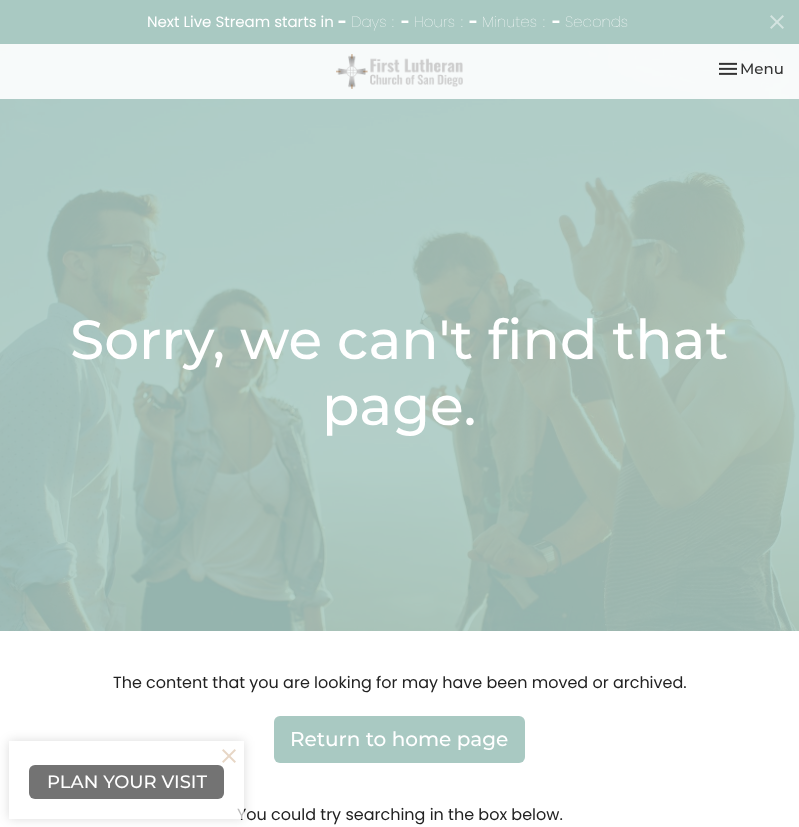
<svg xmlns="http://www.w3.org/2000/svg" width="799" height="827">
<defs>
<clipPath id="clip1"><path d="M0 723h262v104h-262zm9 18h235v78h-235z" clip-rule="evenodd"/></clipPath>
</defs>
<rect width="100%" height="100%" fill="#fff"/>
<rect width="799" height="44" fill="#a9c9c2"/>
<text x="147" y="27" style="font-family:Poppins;font-size:15px;fill:#fff">Next Live Stream starts in</text>
<text x="338" y="27" style="font-family:Poppins;font-size:15px;font-weight:800;fill:#fff">-</text>
<text x="351" y="27" style="font-family:Poppins;font-size:15px;font-weight:100;fill:#fff">Days</text>
<text x="392" y="27" style="font-family:Poppins;font-size:15px;font-weight:100;fill:#fff">:</text>
<text x="401" y="27" style="font-family:Poppins;font-size:15px;font-weight:800;fill:#fff">-</text>
<text x="414" y="27" style="font-family:Poppins;font-size:15px;font-weight:100;fill:#fff">Hours</text>
<text x="461" y="27" style="font-family:Poppins;font-size:15px;font-weight:100;fill:#fff">:</text>
<text x="469" y="27" style="font-family:Poppins;font-size:15px;font-weight:800;fill:#fff">-</text>
<text x="482" y="27" style="font-family:Poppins;font-size:15px;font-weight:100;fill:#fff">Minutes</text>
<text x="543" y="27" style="font-family:Poppins;font-size:15px;font-weight:100;fill:#fff">:</text>
<text x="552" y="27" style="font-family:Poppins;font-size:15px;font-weight:800;fill:#fff">-</text>
<text x="565" y="27" style="font-family:Poppins;font-size:15px;font-weight:100;fill:#fff">Seconds</text>
<image x="770" y="15" width="14" height="14" href="media/1.png"/>
<image x="0" y="44" width="799" height="587" href="media/4.png"/>
<rect y="44" width="799" height="55" fill="#ffffffe6"/>
<image x="336" y="54" width="127" height="35" href="media/2.png"/>
<image x="719" y="62" width="18" height="13" href="media/3.png"/>
<text x="740" y="74" style="font-family:Montserrat;font-size:15px;font-weight:500;fill:#333">Menu</text>
<text x="70" y="359" style="font-family:Montserrat;font-size:55px;font-weight:500;fill:#fff">Sorry, we can't find that</text>
<text x="322" y="425" style="font-family:Montserrat;font-size:55px;font-weight:500;fill:#fff">page.</text>
<text x="113" y="688" style="font-family:Poppins;font-size:16px;fill:#222">The content that you are looking for may have been moved or archived.</text>
<rect x="274" y="716" width="251" height="47" rx="6" fill="#a9c9c2"/>
<text x="290" y="746" style="font-family:Montserrat;font-size:20px;font-weight:500;fill:#fff">Return to home page</text>
<text x="237" y="820" style="font-family:Poppins;font-size:16px;fill:#222">You could try searching in the box below.</text>
<g clip-path="url(#clip1)">
<rect x="9" y="741" width="235" height="78" fill="#00000024" filter="blur(5.5px)"/>
</g>
<rect x="237" y="808" width="7" height="11" fill="#ffffffb0"/>
<image x="222" y="749" width="14" height="14" href="media/5.png"/>
<rect x="29" y="765" width="195" height="34" rx="6" fill="#737373"/>
<text x="47" y="788" style="font-family:Montserrat;font-size:18px;font-weight:500;fill:#fff">PLAN YOUR VISIT</text>
</svg>
